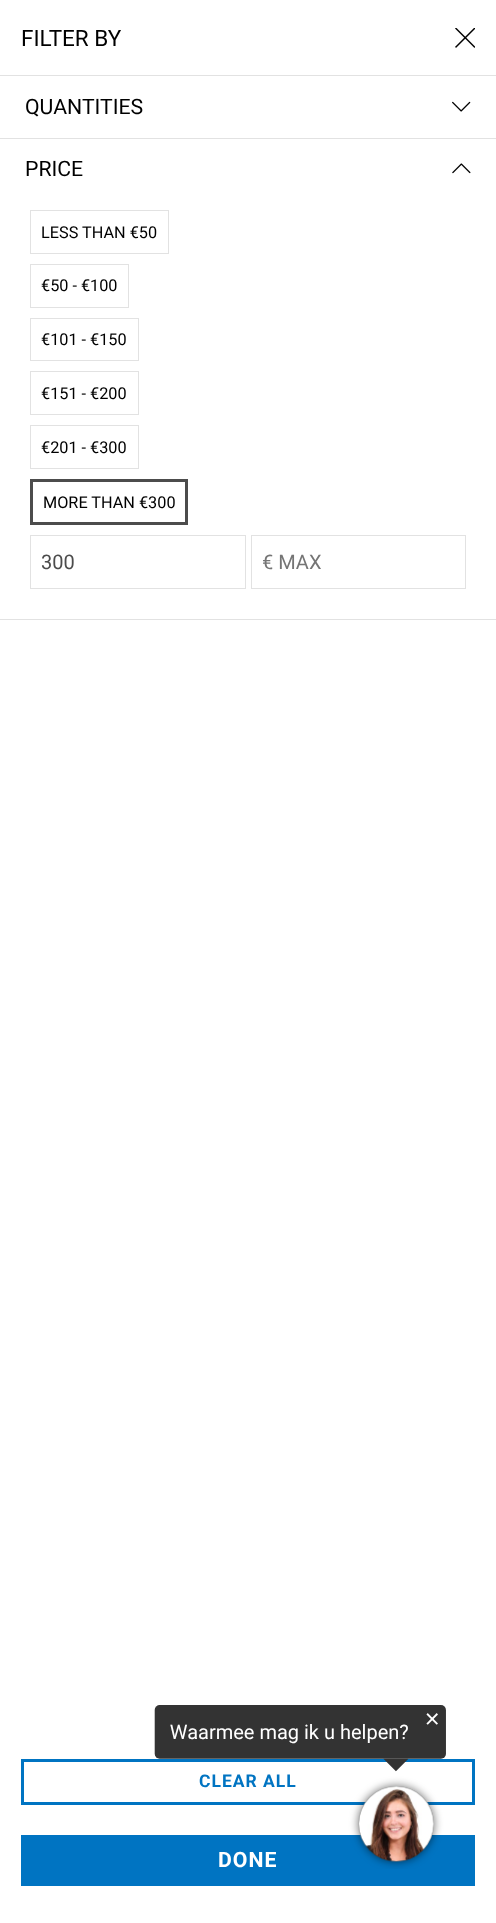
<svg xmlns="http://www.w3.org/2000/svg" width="496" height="1923">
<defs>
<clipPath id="clip1"><rect x="263" y="550" width="173" height="24"/></clipPath>
</defs>
<rect width="100%" height="100%" fill="#fff"/>
<text x="21" y="46" style="font-family:Roboto;font-size:22.5px;fill:#000">FILTER BY</text>
<image x="455" y="28" width="20" height="20" href="media/1.png"/>
<rect y="75" width="496" height="1" fill="#e2e2e2"/>
<text x="25" y="114" style="font-family:Roboto;font-size:21.25px;fill:#000">QUANTITIES</text>
<image x="452" y="101" width="19" height="11" href="media/2.png"/>
<rect y="138" width="496" height="1" fill="#e2e2e2"/>
<rect y="619" width="496" height="1" fill="#e2e2e2"/>
<text x="25" y="176" style="font-family:Roboto;font-size:21.25px;fill:#000">PRICE</text>
<image x="452" y="163" width="19" height="11" href="media/3.png"/>
<rect x="30.5" y="210.5" width="138" height="43" fill="none" stroke="#e2e2e2"/>
<text x="41" y="238" style="font-family:Roboto;font-size:16.25px;fill:#000">LESS THAN €50</text>
<rect x="30.5" y="264.5" width="98" height="43" fill="none" stroke="#e2e2e2"/>
<text x="41" y="291" style="font-family:Roboto;font-size:16.25px;fill:#000">€50 - €100</text>
<rect x="30.5" y="318.5" width="108" height="42" fill="none" stroke="#e2e2e2"/>
<text x="41" y="345" style="font-family:Roboto;font-size:16.25px;fill:#000">€101 - €150</text>
<rect x="30.5" y="371.5" width="108" height="43" fill="none" stroke="#e2e2e2"/>
<text x="41" y="399" style="font-family:Roboto;font-size:16.25px;fill:#000">€151 - €200</text>
<rect x="30.5" y="425.5" width="108" height="43" fill="none" stroke="#e2e2e2"/>
<text x="41" y="453" style="font-family:Roboto;font-size:16.25px;fill:#000">€201 - €300</text>
<rect x="31.5" y="480.5" width="155" height="43" fill="none" stroke="#4c4c4c" stroke-width="3"/>
<text x="43" y="508" style="font-family:Roboto;font-size:16.25px;fill:#000">MORE THAN €300</text>
<rect x="30.5" y="535.5" width="215" height="53" fill="none" stroke="#e2e2e2"/>
<text x="41" y="569" style="font-family:Roboto;font-size:20px;fill:#4c4c4c">300</text>
<rect x="251.5" y="535.5" width="214" height="53" fill="none" stroke="#e2e2e2"/>
<g clip-path="url(#clip1)">
<text x="262" y="569" style="font-family:Roboto;font-size:20px;fill:#757575">€ MAX</text>
</g>
<rect x="22.5" y="1760.5" width="451" height="43" fill="none" stroke="#0074c2" stroke-width="3"/>
<text x="199" y="1787" style="font-family:Roboto;font-size:17.5px;font-weight:bold;letter-spacing:1px;fill:#0074c2">CLEAR ALL</text>
<rect x="21" y="1835" width="454" height="51" fill="#0074c2"/>
<text x="218" y="1867" style="font-family:Roboto;font-size:21.25px;font-weight:bold;letter-spacing:1px;fill:#fff">DONE</text>
<image x="154" y="1705" width="292" height="164" href="media/4.png"/>
</svg>
